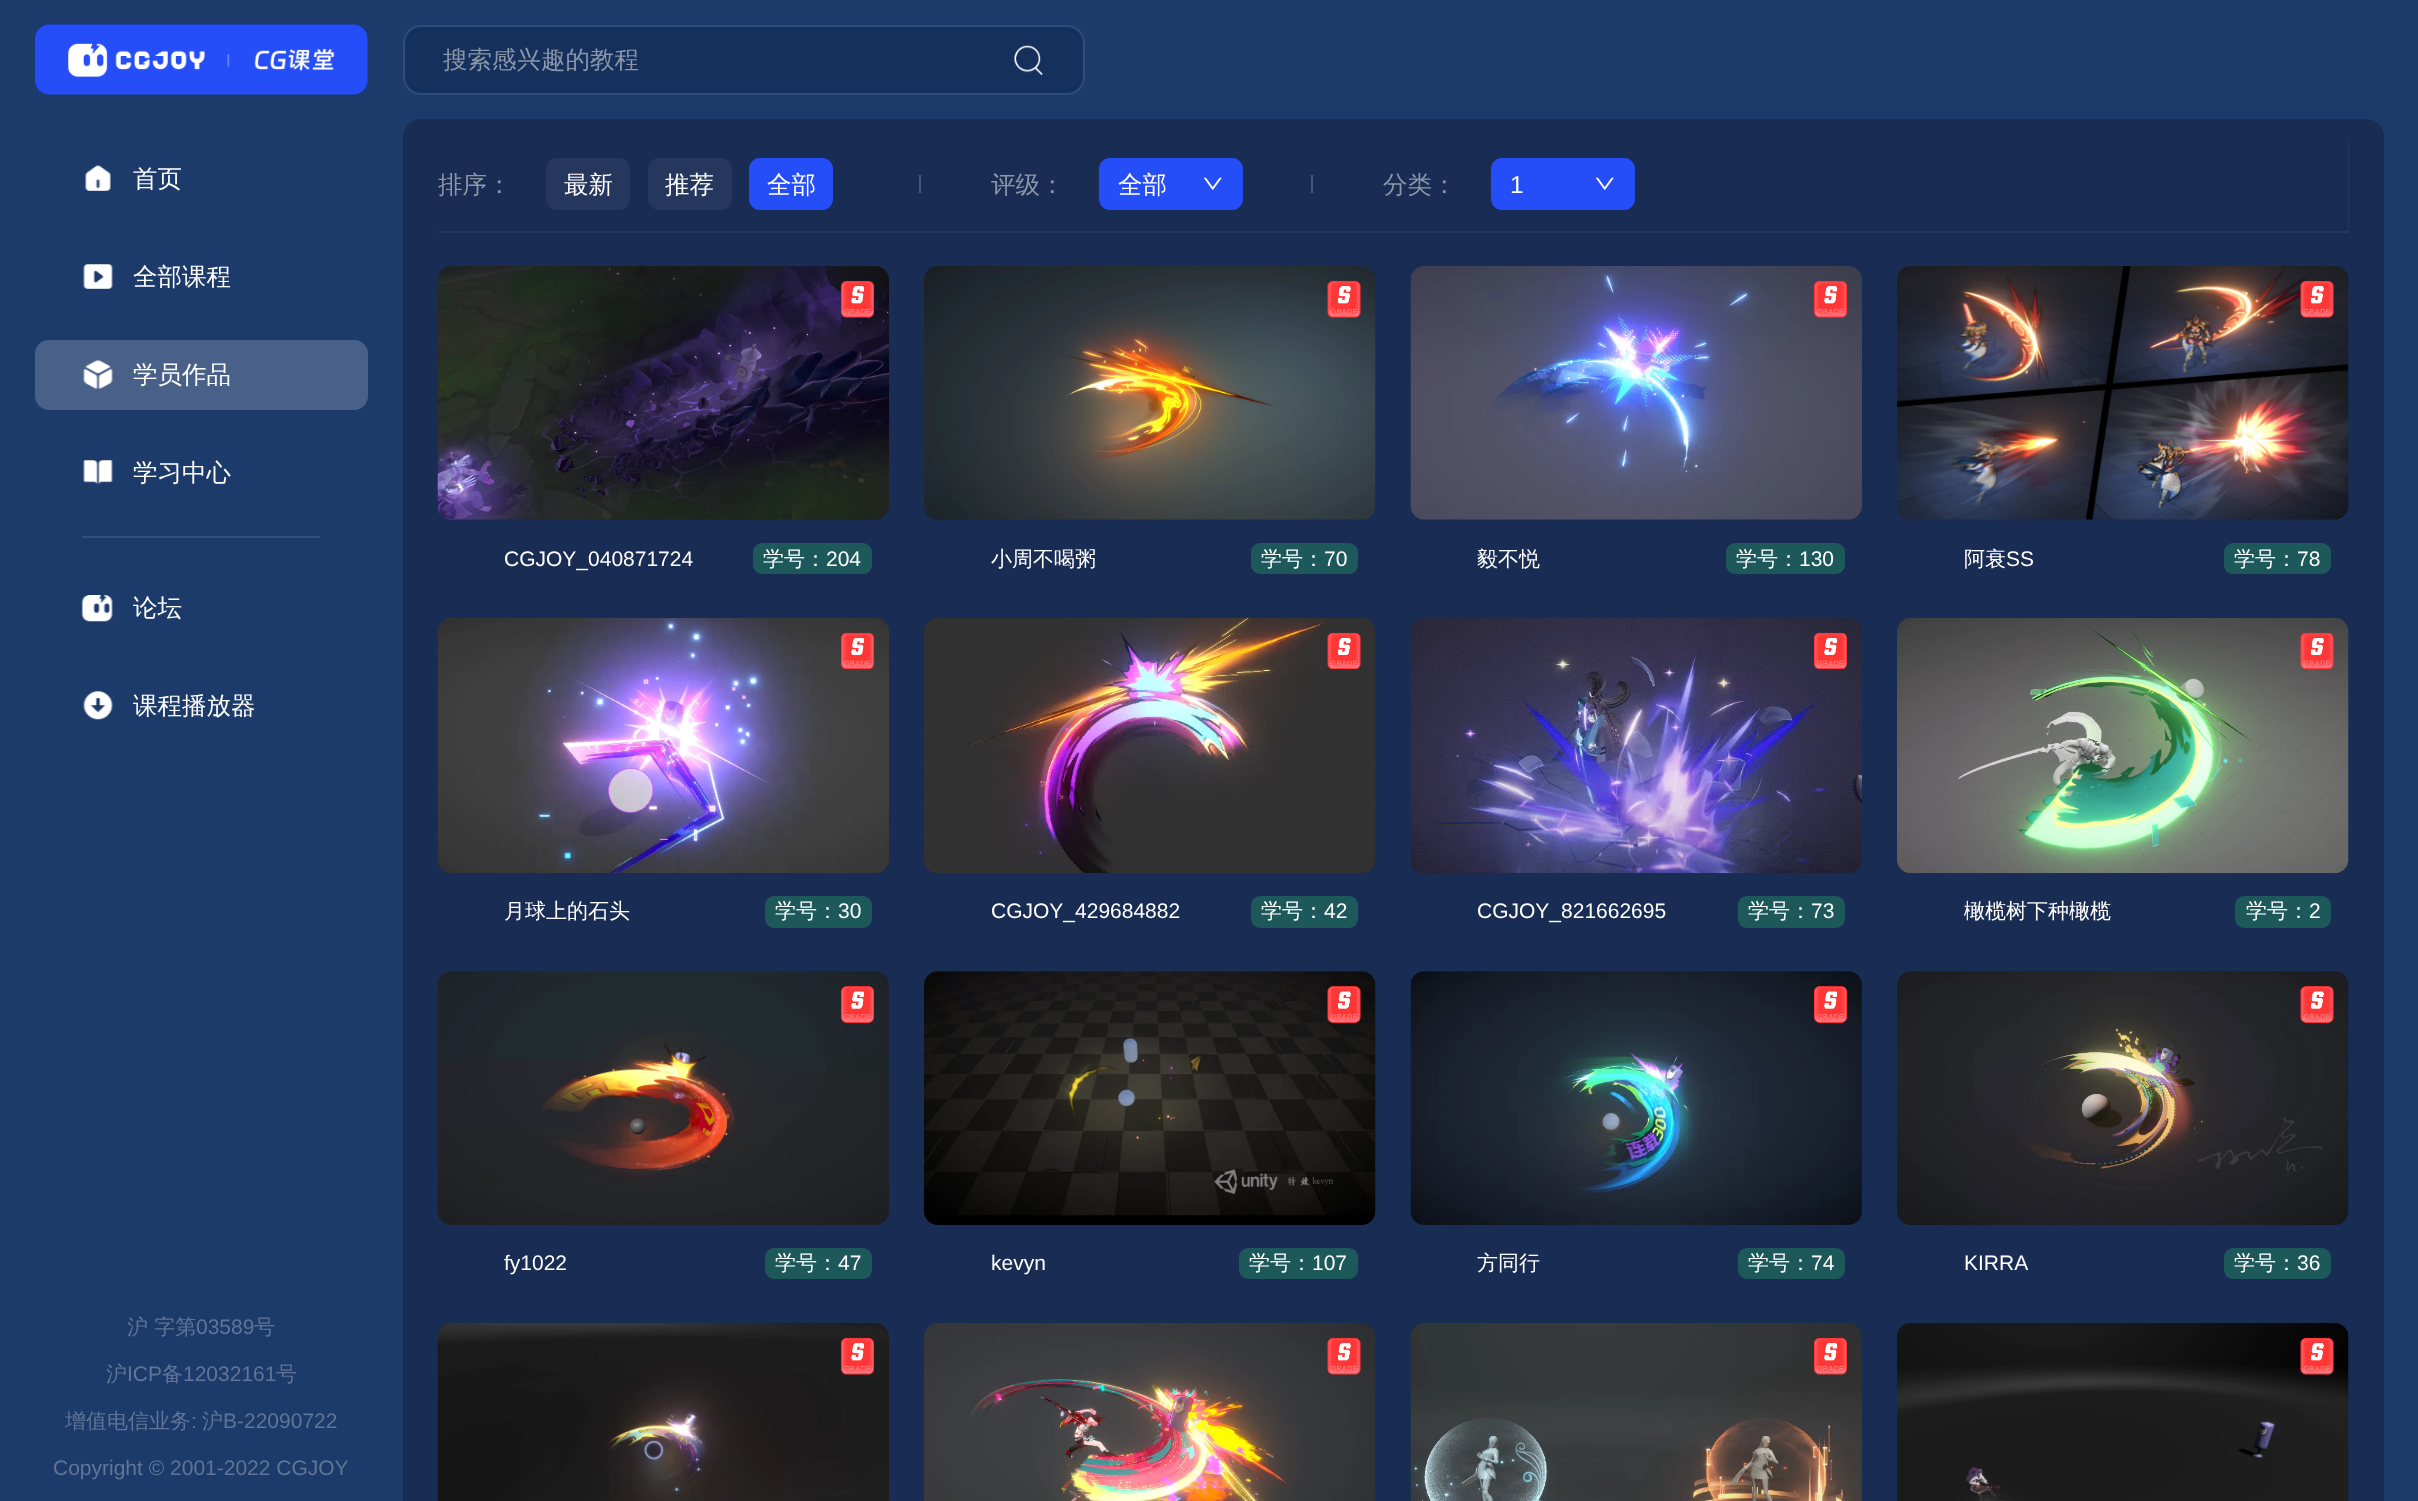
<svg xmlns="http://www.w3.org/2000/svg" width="2418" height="1501">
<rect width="100%" height="100%" fill="#1c3a6a"/>
<image x="85" y="165" width="26" height="26" href="media/1.png"/>
<text x="133" y="187" style="font-family:WenQuanYi Zen Hei;font-size:24.5px;font-weight:500;fill:#fff">首页</text>
<image x="83" y="264" width="30" height="25" href="media/2.png"/>
<text x="133" y="285" style="font-family:WenQuanYi Zen Hei;font-size:24.5px;font-weight:500;fill:#fff">全部课程</text>
<rect x="35" y="340" width="333" height="70" rx="14" fill="#496188"/>
<image x="83" y="360" width="30" height="29" href="media/3.png"/>
<text x="133" y="383" style="font-family:WenQuanYi Zen Hei;font-size:24.5px;font-weight:500;fill:#fff">学员作品</text>
<image x="83" y="460" width="30" height="25" href="media/4.png"/>
<text x="133" y="481" style="font-family:WenQuanYi Zen Hei;font-size:24.5px;font-weight:500;fill:#fff">学习中心</text>
<rect x="82" y="536" width="238" height="2" fill="#334e79"/>
<image x="81" y="595" width="32" height="27" href="media/5.png"/>
<text x="133" y="616" style="font-family:WenQuanYi Zen Hei;font-size:24.5px;font-weight:500;fill:#fff">论坛</text>
<image x="83" y="691" width="30" height="29" href="media/6.png"/>
<text x="133" y="714" style="font-family:WenQuanYi Zen Hei;font-size:24.5px;font-weight:500;fill:#fff">课程播放器</text>
<text x="127" y="1334" style="font-family:WenQuanYi Zen Hei;font-size:21px;font-weight:500;fill:#607597">沪 字第</text>
<text x="196" y="1334" style="font-family:Liberation Sans;font-size:21px;fill:#607597">03589</text>
<text x="254" y="1334" style="font-family:WenQuanYi Zen Hei;font-size:21px;font-weight:500;fill:#607597">号</text>
<text x="106" y="1381" style="font-family:WenQuanYi Zen Hei;font-size:21px;font-weight:500;fill:#607597">沪</text>
<text x="127" y="1381" style="font-family:Liberation Sans;font-size:21px;fill:#607597">ICP</text>
<text x="162" y="1381" style="font-family:WenQuanYi Zen Hei;font-size:21px;font-weight:500;fill:#607597">备</text>
<text x="183" y="1381" style="font-family:Liberation Sans;font-size:21px;fill:#607597">12032161</text>
<text x="276" y="1381" style="font-family:WenQuanYi Zen Hei;font-size:21px;font-weight:500;fill:#607597">号</text>
<text x="65" y="1428" style="font-family:WenQuanYi Zen Hei;font-size:21px;font-weight:500;fill:#607597">增值电信业务</text>
<text x="191" y="1428" style="font-family:Liberation Sans;font-size:21px;fill:#607597">:</text>
<text x="202" y="1428" style="font-family:WenQuanYi Zen Hei;font-size:21px;font-weight:500;fill:#607597">沪</text>
<text x="223" y="1428" style="font-family:Liberation Sans;font-size:21px;fill:#607597">B-22090722</text>
<text x="53" y="1475" style="font-family:Liberation Sans;font-size:21px;fill:#607597">Copyright © 2001-2022 CGJOY</text>
<image x="35" y="24" width="333" height="71" href="media/7.png"/>
<rect x="404" y="26" width="680" height="68" rx="17" fill="#15305c" stroke="#2e4c7c" stroke-width="2"/>
<text x="443" y="68" style="font-family:WenQuanYi Zen Hei;font-size:24.5px;font-weight:500;fill:#8c96a9">搜索感兴趣的教程</text>
<image x="1014" y="45" width="29" height="31" href="media/8.png"/>
<path d="M421 119h1945c10 0 18 8 18 18v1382h-1981v-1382c0-10 8-18 18-18z" fill="#192c53"/>
<path d="M438 231v2h1911v-95h-1v93z" fill="#25375c"/>
<text x="438" y="193" style="font-family:WenQuanYi Zen Hei;font-size:24.5px;font-weight:500;fill:#8c96a9">排序：</text>
<rect x="546" y="158" width="84" height="52" rx="11" fill="#25375c"/>
<text x="564" y="193" style="font-family:WenQuanYi Zen Hei;font-size:24.5px;font-weight:500;fill:#fff">最新</text>
<rect x="648" y="158" width="84" height="52" rx="11" fill="#25375c"/>
<text x="665" y="193" style="font-family:WenQuanYi Zen Hei;font-size:24.5px;font-weight:500;fill:#fff">推荐</text>
<rect x="749" y="158" width="84" height="52" rx="11" fill="#254df8"/>
<text x="767" y="193" style="font-family:WenQuanYi Zen Hei;font-size:24.5px;font-weight:500;fill:#fff">全部</text>
<rect x="919" y="175" width="2" height="18" fill="#475675"/>
<text x="991" y="193" style="font-family:WenQuanYi Zen Hei;font-size:24.5px;font-weight:500;fill:#8c96a9">评级：</text>
<rect x="1099" y="158" width="144" height="52" rx="11" fill="#254df8"/>
<text x="1118" y="193" style="font-family:WenQuanYi Zen Hei;font-size:24.5px;font-weight:500;fill:#fff">全部</text>
<image x="1203" y="177" width="19" height="13" href="media/9.png"/>
<rect x="1311" y="175" width="2" height="18" fill="#475675"/>
<text x="1383" y="193" style="font-family:WenQuanYi Zen Hei;font-size:24.5px;font-weight:500;fill:#8c96a9">分类：</text>
<rect x="1491" y="158" width="144" height="52" rx="11" fill="#254df8"/>
<text x="1510" y="193" style="font-family:Liberation Sans;font-size:24.5px;fill:#fff">1</text>
<image x="1595" y="177" width="19" height="13" href="media/9.png"/>
<image x="437" y="266" width="452" height="254" href="media/10.png"/>
<image x="840" y="280" width="35" height="38" href="media/11.png"/>
<text x="504" y="566" style="font-family:Liberation Sans;font-size:21px;fill:#fff">CGJOY_040871724</text>
<rect x="753" y="543" width="119" height="31" rx="9" fill="#1d595b"/>
<text x="763" y="566" style="font-family:WenQuanYi Zen Hei;font-size:21px;font-weight:500;fill:#fff">学号：</text>
<text x="826" y="566" style="font-family:Liberation Sans;font-size:21px;fill:#fff">204</text>
<image x="924" y="266" width="452" height="254" href="media/12.png"/>
<image x="1327" y="280" width="34" height="38" href="media/13.png"/>
<text x="991" y="566" style="font-family:WenQuanYi Zen Hei;font-size:21px;font-weight:500;fill:#fff">小周不喝粥</text>
<rect x="1251" y="543" width="107" height="31" rx="9" fill="#1d595b"/>
<text x="1261" y="566" style="font-family:WenQuanYi Zen Hei;font-size:21px;font-weight:500;fill:#fff">学号：</text>
<text x="1324" y="566" style="font-family:Liberation Sans;font-size:21px;fill:#fff">70</text>
<image x="1410" y="266" width="452" height="254" href="media/14.png"/>
<image x="1813" y="280" width="35" height="38" href="media/15.png"/>
<text x="1477" y="566" style="font-family:WenQuanYi Zen Hei;font-size:21px;font-weight:500;fill:#fff">毅不悦</text>
<rect x="1726" y="543" width="119" height="31" rx="9" fill="#1d595b"/>
<text x="1736" y="566" style="font-family:WenQuanYi Zen Hei;font-size:21px;font-weight:500;fill:#fff">学号：</text>
<text x="1799" y="566" style="font-family:Liberation Sans;font-size:21px;fill:#fff">130</text>
<image x="1897" y="266" width="452" height="254" href="media/16.png"/>
<image x="2300" y="280" width="34" height="38" href="media/17.png"/>
<text x="1964" y="566" style="font-family:WenQuanYi Zen Hei;font-size:21px;font-weight:500;fill:#fff">阿衰</text>
<text x="2006" y="566" style="font-family:Liberation Sans;font-size:21px;fill:#fff">SS</text>
<rect x="2224" y="543" width="107" height="31" rx="9" fill="#1d595b"/>
<text x="2234" y="566" style="font-family:WenQuanYi Zen Hei;font-size:21px;font-weight:500;fill:#fff">学号：</text>
<text x="2297" y="566" style="font-family:Liberation Sans;font-size:21px;fill:#fff">78</text>
<image x="437" y="618" width="452" height="255" href="media/18.png"/>
<image x="840" y="632" width="35" height="38" href="media/19.png"/>
<text x="504" y="918" style="font-family:WenQuanYi Zen Hei;font-size:21px;font-weight:500;fill:#fff">月球上的石头</text>
<rect x="765" y="896" width="107" height="32" rx="9" fill="#1d595b"/>
<text x="775" y="918" style="font-family:WenQuanYi Zen Hei;font-size:21px;font-weight:500;fill:#fff">学号：</text>
<text x="838" y="918" style="font-family:Liberation Sans;font-size:21px;fill:#fff">30</text>
<image x="924" y="617" width="452" height="257" href="media/20.png"/>
<image x="1327" y="632" width="34" height="38" href="media/21.png"/>
<text x="991" y="918" style="font-family:Liberation Sans;font-size:21px;fill:#fff">CGJOY_429684882</text>
<rect x="1251" y="896" width="107" height="32" rx="9" fill="#1d595b"/>
<text x="1261" y="918" style="font-family:WenQuanYi Zen Hei;font-size:21px;font-weight:500;fill:#fff">学号：</text>
<text x="1324" y="918" style="font-family:Liberation Sans;font-size:21px;fill:#fff">42</text>
<image x="1410" y="618" width="452" height="256" href="media/22.png"/>
<image x="1813" y="632" width="35" height="38" href="media/23.png"/>
<text x="1477" y="918" style="font-family:Liberation Sans;font-size:21px;fill:#fff">CGJOY_821662695</text>
<rect x="1738" y="896" width="107" height="32" rx="9" fill="#1d595b"/>
<text x="1748" y="918" style="font-family:WenQuanYi Zen Hei;font-size:21px;font-weight:500;fill:#fff">学号：</text>
<text x="1811" y="918" style="font-family:Liberation Sans;font-size:21px;fill:#fff">73</text>
<image x="1897" y="618" width="452" height="256" href="media/24.png"/>
<image x="2300" y="632" width="34" height="38" href="media/25.png"/>
<text x="1964" y="918" style="font-family:WenQuanYi Zen Hei;font-size:21px;font-weight:500;fill:#fff">橄榄树下种橄榄</text>
<rect x="2235" y="896" width="96" height="32" rx="9" fill="#1d595b"/>
<text x="2246" y="918" style="font-family:WenQuanYi Zen Hei;font-size:21px;font-weight:500;fill:#fff">学号：</text>
<text x="2309" y="918" style="font-family:Liberation Sans;font-size:21px;fill:#fff">2</text>
<image x="437" y="971" width="452" height="254" href="media/26.png"/>
<image x="840" y="986" width="35" height="37" href="media/27.png"/>
<text x="504" y="1270" style="font-family:Liberation Sans;font-size:21px;fill:#fff">fy1022</text>
<rect x="765" y="1248" width="107" height="31" rx="9" fill="#1d595b"/>
<text x="775" y="1270" style="font-family:WenQuanYi Zen Hei;font-size:21px;font-weight:500;fill:#fff">学号：</text>
<text x="838" y="1270" style="font-family:Liberation Sans;font-size:21px;fill:#fff">47</text>
<image x="924" y="971" width="452" height="254" href="media/28.png"/>
<image x="1327" y="986" width="34" height="37" href="media/29.png"/>
<text x="991" y="1270" style="font-family:Liberation Sans;font-size:21px;fill:#fff">kevyn</text>
<rect x="1239" y="1248" width="119" height="31" rx="9" fill="#1d595b"/>
<text x="1249" y="1270" style="font-family:WenQuanYi Zen Hei;font-size:21px;font-weight:500;fill:#fff">学号：</text>
<text x="1312" y="1270" style="font-family:Liberation Sans;font-size:21px;fill:#fff">107</text>
<image x="1410" y="971" width="452" height="254" href="media/30.png"/>
<image x="1813" y="986" width="35" height="37" href="media/31.png"/>
<text x="1477" y="1270" style="font-family:WenQuanYi Zen Hei;font-size:21px;font-weight:500;fill:#fff">方同行</text>
<rect x="1738" y="1248" width="107" height="31" rx="9" fill="#1d595b"/>
<text x="1748" y="1270" style="font-family:WenQuanYi Zen Hei;font-size:21px;font-weight:500;fill:#fff">学号：</text>
<text x="1811" y="1270" style="font-family:Liberation Sans;font-size:21px;fill:#fff">74</text>
<image x="1897" y="971" width="452" height="254" href="media/32.png"/>
<image x="2300" y="986" width="34" height="37" href="media/33.png"/>
<text x="1964" y="1270" style="font-family:Liberation Sans;font-size:21px;fill:#fff">KIRRA</text>
<rect x="2224" y="1248" width="107" height="31" rx="9" fill="#1d595b"/>
<text x="2234" y="1270" style="font-family:WenQuanYi Zen Hei;font-size:21px;font-weight:500;fill:#fff">学号：</text>
<text x="2297" y="1270" style="font-family:Liberation Sans;font-size:21px;fill:#fff">36</text>
<image x="437" y="1323" width="452" height="178" href="media/34.png"/>
<image x="840" y="1337" width="35" height="38" href="media/35.png"/>
<image x="924" y="1323" width="452" height="178" href="media/36.png"/>
<image x="1327" y="1337" width="34" height="38" href="media/37.png"/>
<image x="1410" y="1323" width="452" height="178" href="media/38.png"/>
<image x="1813" y="1337" width="35" height="38" href="media/39.png"/>
<image x="1897" y="1323" width="452" height="178" href="media/40.png"/>
<image x="2300" y="1337" width="34" height="38" href="media/41.png"/>
</svg>
